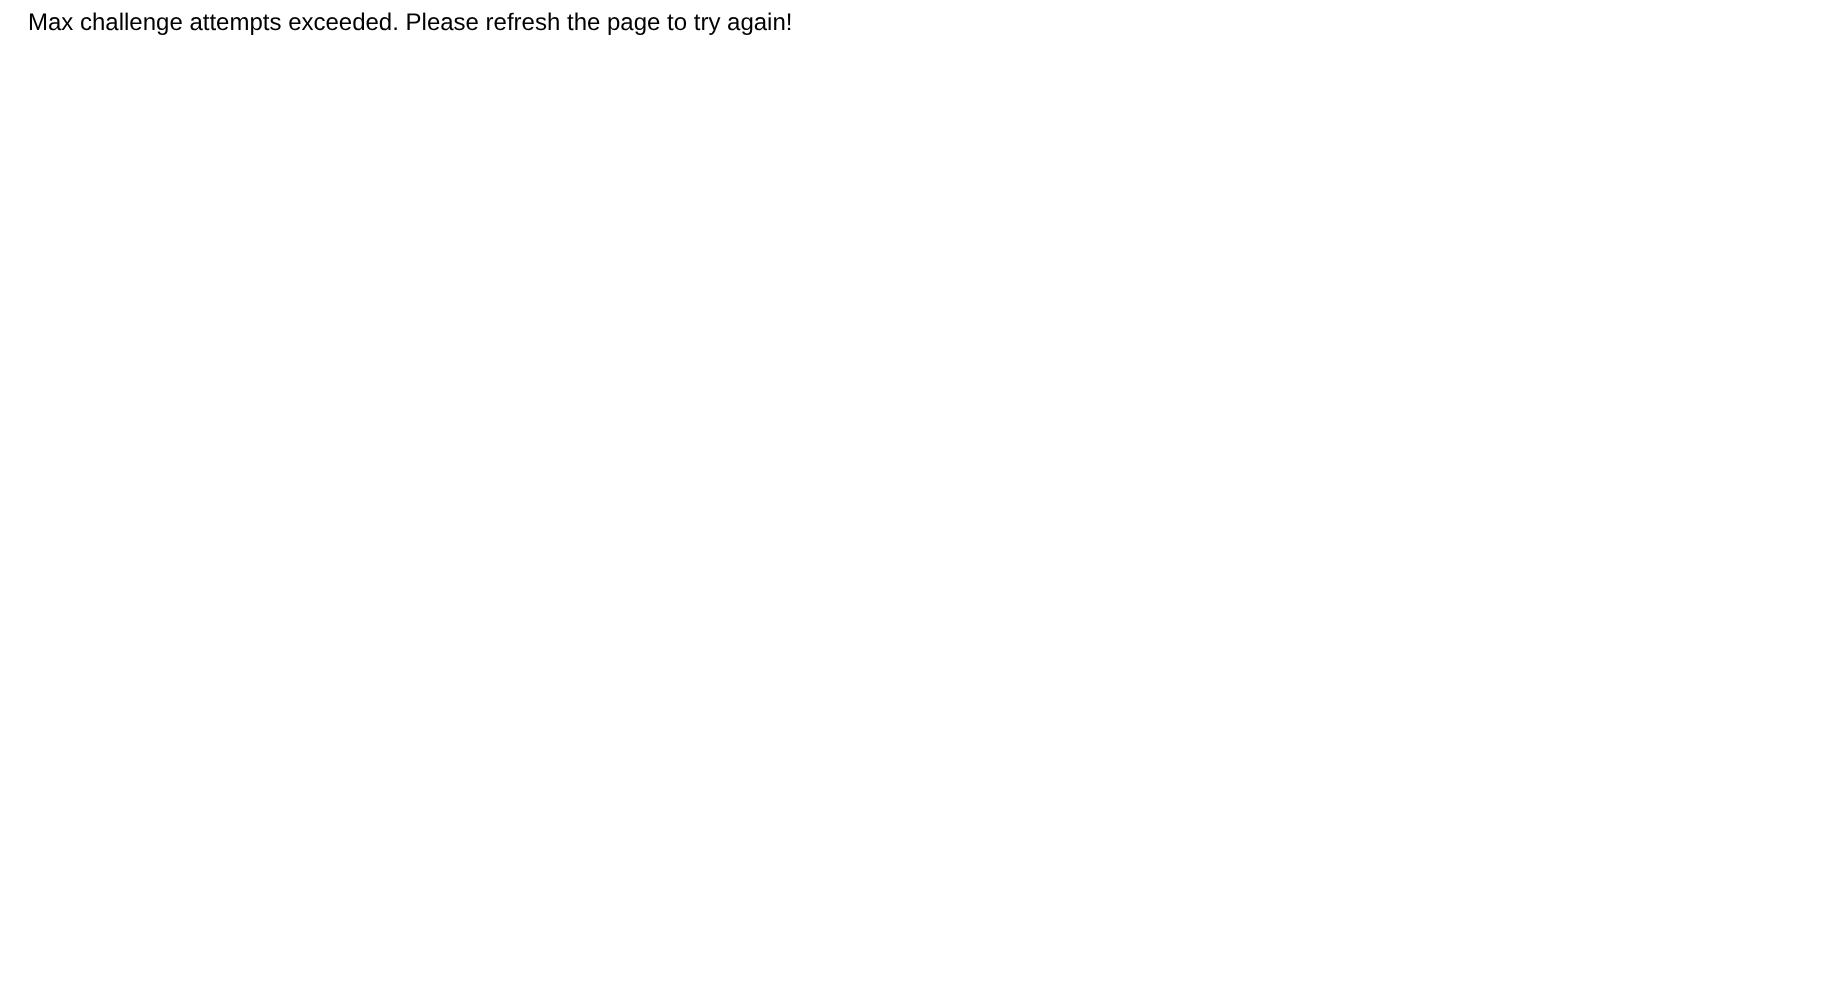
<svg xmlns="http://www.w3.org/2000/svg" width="1836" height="987">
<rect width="100%" height="100%" fill="#fff"/>
<text x="28" y="30" style="font-family:Liberation Sans;font-size:24px;fill:#000">Max challenge attempts exceeded. Please refresh the page to try again!</text>
</svg>
